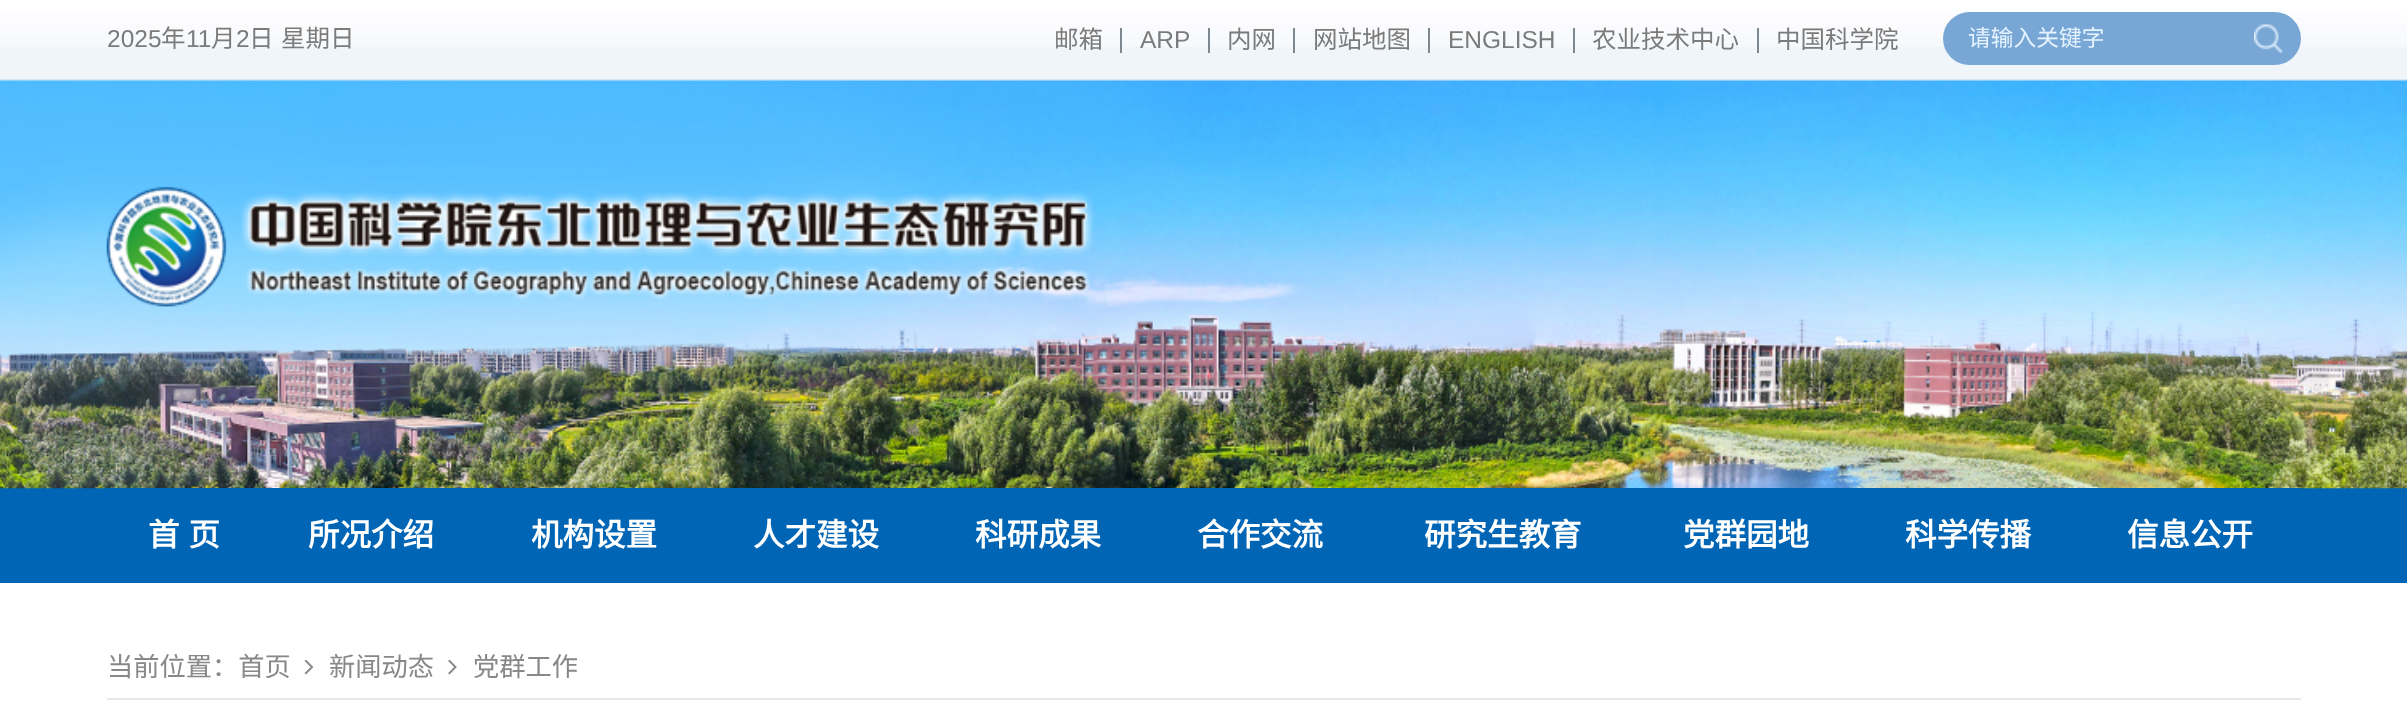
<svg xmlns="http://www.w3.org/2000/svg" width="2407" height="724">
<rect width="100%" height="100%" fill="#fff"/>
<rect y="47" width="2407" height="32" fill="#f0f5fa"/>
<image x="0" y="0" width="2407" height="47" href="media/1.png"/>
<rect y="79" width="2407" height="2" fill="#d6e7f3"/>
<text x="107" y="47" style="font-family:Liberation Sans;font-size:24.5px;fill:#7b7b7b">2025</text>
<text x="161" y="47" style="font-family:Noto Sans CJK SC;font-size:24.5px;fill:#7b7b7b">年</text>
<text x="186" y="47" style="font-family:Liberation Sans;font-size:24.5px;fill:#7b7b7b">11</text>
<text x="211" y="47" style="font-family:Noto Sans CJK SC;font-size:24.5px;fill:#7b7b7b">月</text>
<text x="236" y="47" style="font-family:Liberation Sans;font-size:24.5px;fill:#7b7b7b">2</text>
<text x="249" y="47" style="font-family:Noto Sans CJK SC;font-size:24.5px;fill:#7b7b7b">日</text>
<text x="281" y="47" style="font-family:Noto Sans CJK SC;font-size:24.5px;fill:#7b7b7b">星期日</text>
<rect x="1120" y="28" width="2" height="25" fill="#7d8890"/>
<text x="1054" y="48" style="font-family:Noto Sans CJK SC;font-size:24.5px;fill:#7b7b7b">邮箱</text>
<rect x="1208" y="28" width="2" height="25" fill="#7d8890"/>
<text x="1140" y="48" style="font-family:Liberation Sans;font-size:24.5px;fill:#7b7b7b">ARP</text>
<rect x="1293" y="28" width="2" height="25" fill="#7d8890"/>
<text x="1227" y="48" style="font-family:Noto Sans CJK SC;font-size:24.5px;fill:#7b7b7b">内网</text>
<rect x="1428" y="28" width="2" height="25" fill="#7d8890"/>
<text x="1313" y="48" style="font-family:Noto Sans CJK SC;font-size:24.5px;fill:#7b7b7b">网站地图</text>
<rect x="1573" y="28" width="2" height="25" fill="#7d8890"/>
<text x="1448" y="48" style="font-family:Liberation Sans;font-size:24.5px;fill:#7b7b7b">ENGLISH</text>
<rect x="1757" y="28" width="2" height="25" fill="#7d8890"/>
<text x="1592" y="48" style="font-family:Noto Sans CJK SC;font-size:24.5px;fill:#7b7b7b">农业技术中心</text>
<text x="1776" y="48" style="font-family:Noto Sans CJK SC;font-size:24.5px;fill:#7b7b7b">中国科学院</text>
<rect x="1943" y="12" width="358" height="53" rx="26.5" fill="#79a7d5"/>
<text x="1968" y="46" style="font-family:Noto Sans CJK SC;font-size:22.75px;fill:#e5f3ff">请输入关键字</text>
<image x="2254" y="24" width="28" height="29" href="media/2.png"/>
<rect y="488" width="2407" height="95" fill="#0065b5"/>
<image x="0" y="80" width="2407" height="409" href="media/3.png"/>
<image x="106" y="186" width="989" height="121" href="media/4.png"/>
<rect x="107" y="488" width="2194" height="1" fill="#0065b5"/>
<text x="148" y="546" word-spacing="2" style="font-family:Noto Sans CJK SC;font-size:31.5px;font-weight:bold;fill:#fff">首 页</text>
<text x="308" y="546" style="font-family:Noto Sans CJK SC;font-size:31.5px;font-weight:bold;fill:#fff">所况介绍</text>
<text x="531" y="546" style="font-family:Noto Sans CJK SC;font-size:31.5px;font-weight:bold;fill:#fff">机构设置</text>
<text x="753" y="546" style="font-family:Noto Sans CJK SC;font-size:31.5px;font-weight:bold;fill:#fff">人才建设</text>
<text x="975" y="546" style="font-family:Noto Sans CJK SC;font-size:31.5px;font-weight:bold;fill:#fff">科研成果</text>
<text x="1197" y="546" style="font-family:Noto Sans CJK SC;font-size:31.5px;font-weight:bold;fill:#fff">合作交流</text>
<text x="1424" y="546" style="font-family:Noto Sans CJK SC;font-size:31.5px;font-weight:bold;fill:#fff">研究生教育</text>
<text x="1683" y="546" style="font-family:Noto Sans CJK SC;font-size:31.5px;font-weight:bold;fill:#fff">党群园地</text>
<text x="1905" y="546" style="font-family:Noto Sans CJK SC;font-size:31.5px;font-weight:bold;fill:#fff">科学传播</text>
<text x="2127" y="546" style="font-family:Noto Sans CJK SC;font-size:31.5px;font-weight:bold;fill:#fff">信息公开</text>
<rect x="107" y="698" width="2194" height="2" fill="#e8e8e8"/>
<text x="107" y="676" style="font-family:Noto Sans CJK SC;font-size:26.25px;fill:#888">当前位置：首页</text>
<image x="304" y="659" width="10" height="16" href="media/5.png"/>
<text x="329" y="676" style="font-family:Noto Sans CJK SC;font-size:26.25px;fill:#888">新闻动态</text>
<image x="448" y="659" width="9" height="16" href="media/6.png"/>
<text x="473" y="676" style="font-family:Noto Sans CJK SC;font-size:26.25px;fill:#888">党群工作</text>
</svg>
